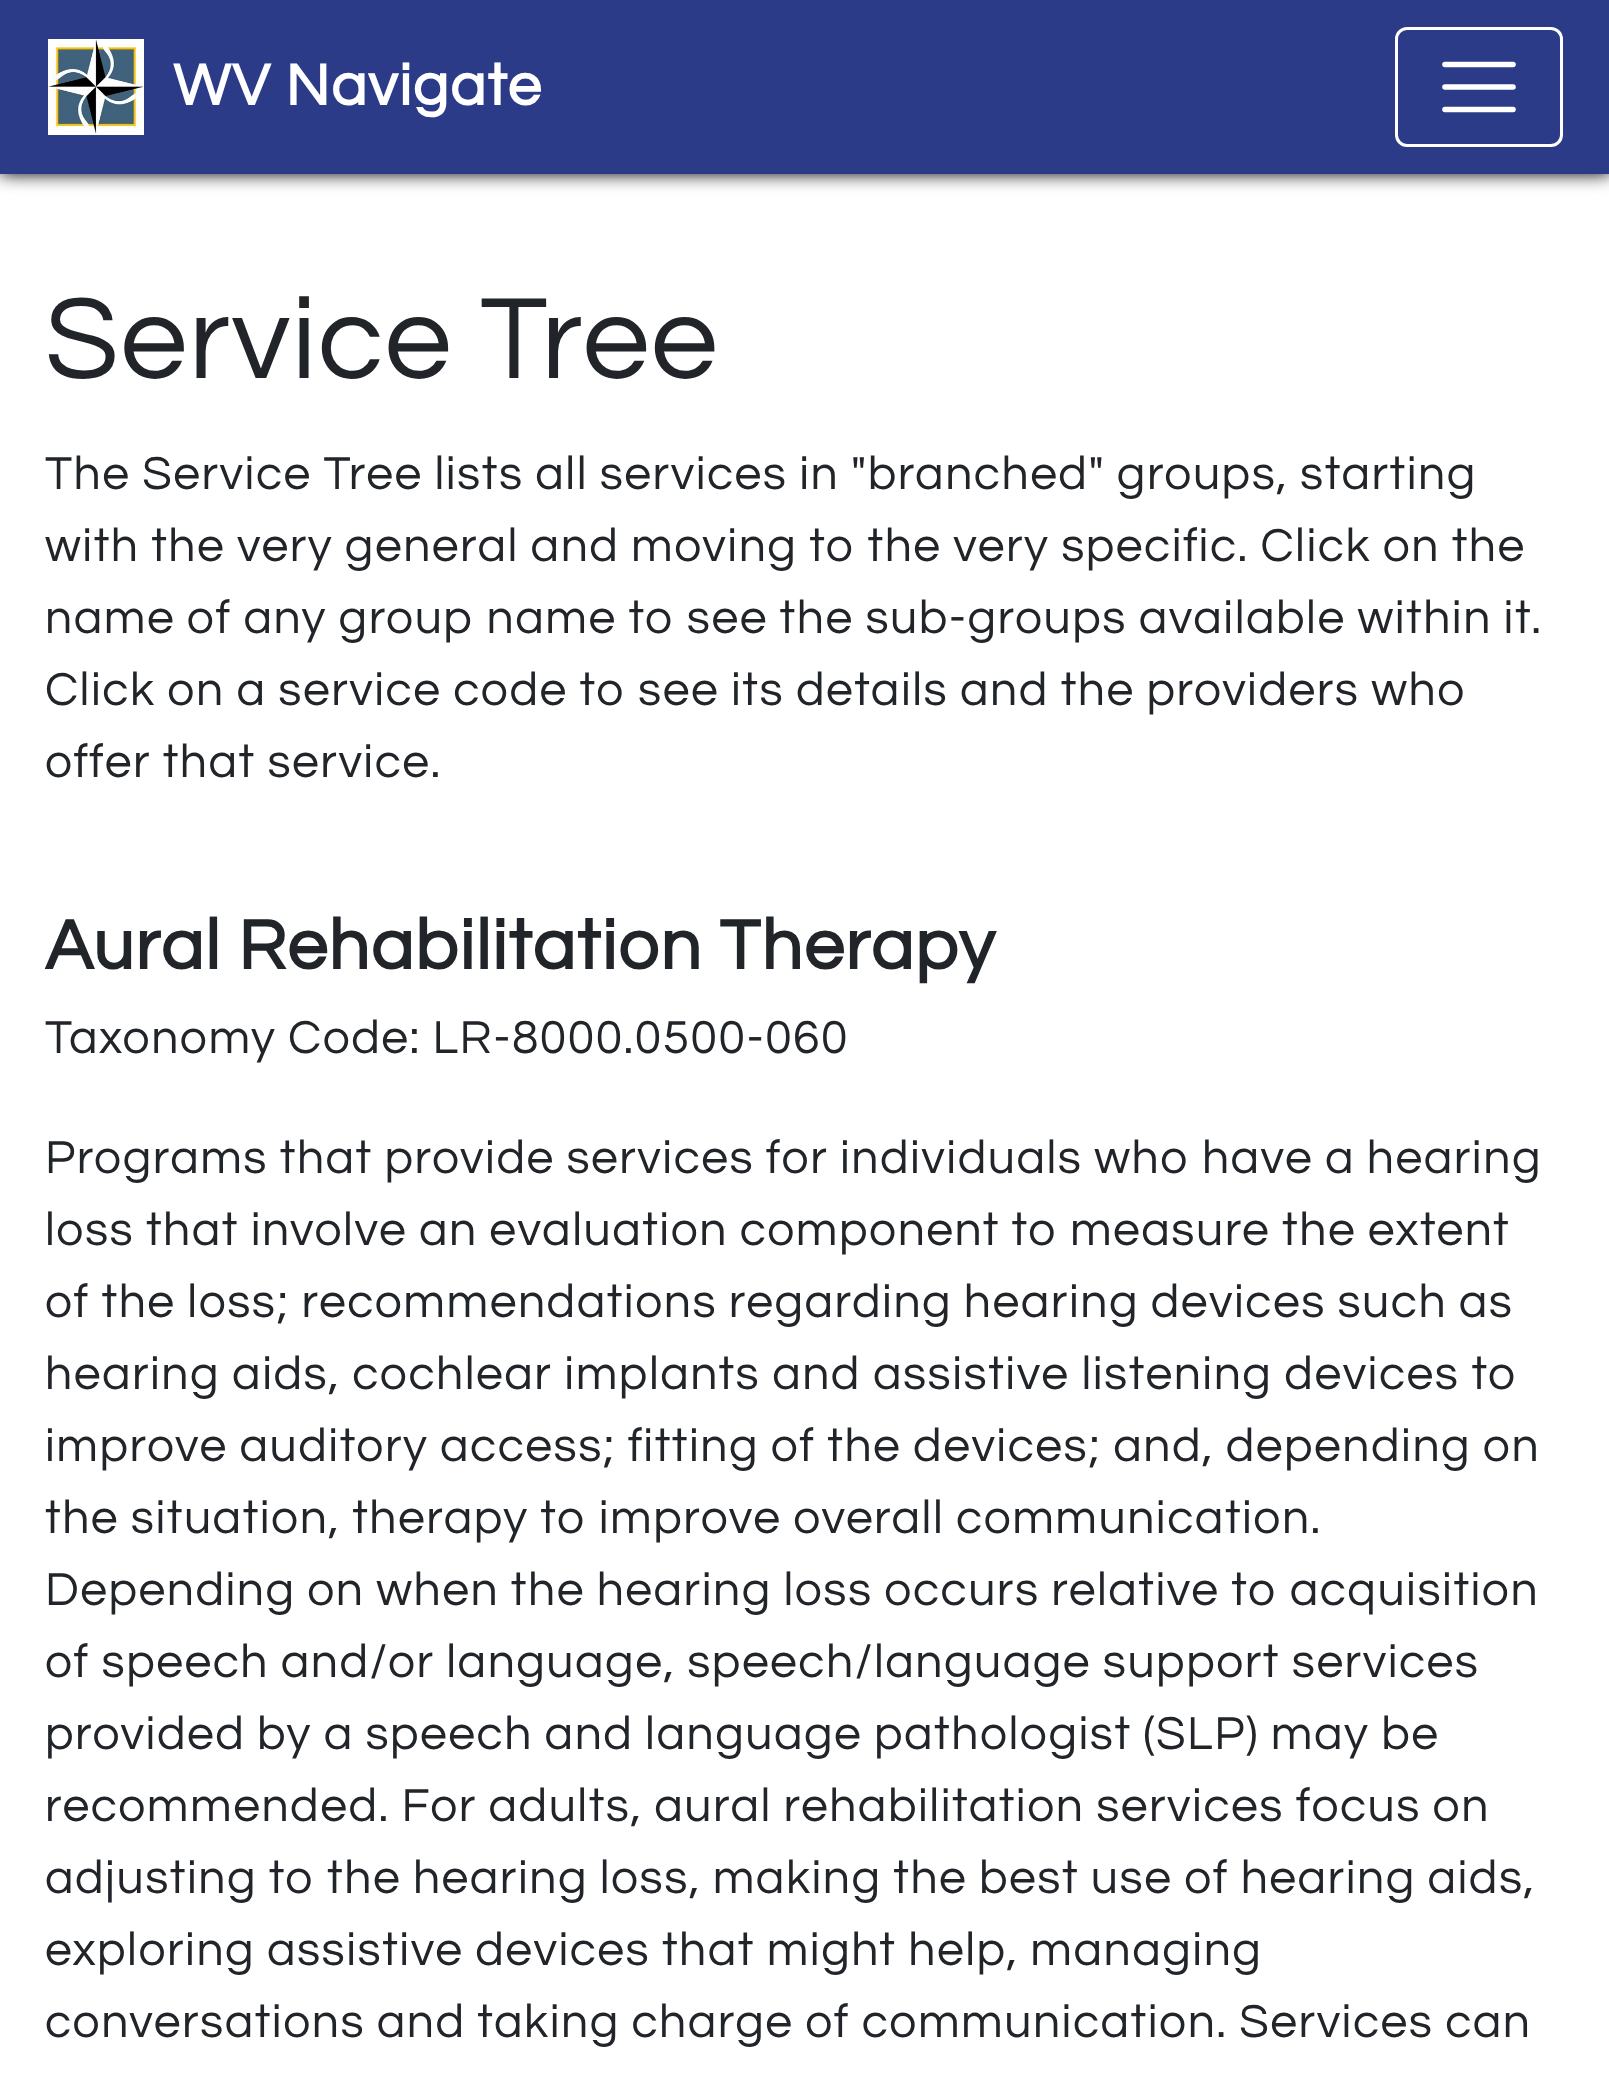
<svg xmlns="http://www.w3.org/2000/svg" width="1609" height="2098">
<rect width="100%" height="100%" fill="#fff"/>
<rect width="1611" height="174" fill="#000" filter="blur(9px)"/>
<rect width="1609" height="174" fill="#2b3b87"/>
<image x="48" y="39" width="96" height="96" href="media/1.png"/>
<text x="173" y="105" style="font-family:Questrial;font-size:60px;font-weight:bold;letter-spacing:1.5px;fill:#fff">WV Navigate</text>
<rect x="1396.5" y="28.5" width="165" height="117" rx="10.5" fill="none" stroke="#fff" stroke-width="3"/>
<path d="M1445 64.5h68m-68 22.5h68m-68 22.5h68" fill="none" stroke="#fff" stroke-width="5.6" stroke-linecap="round"/>
<text x="45" y="378" style="font-family:Questrial;font-size:120px;letter-spacing:1.5px;fill:#212529">Service Tree</text>
<text x="45" y="489" style="font-family:Questrial;font-size:48px;letter-spacing:1.5px;fill:#212529">The Service Tree lists all services in "branched" groups, starting</text>
<text x="45" y="561" style="font-family:Questrial;font-size:48px;letter-spacing:1.5px;fill:#212529">with the very general and moving to the very specific. Click on the</text>
<text x="45" y="633" style="font-family:Questrial;font-size:48px;letter-spacing:1.5px;fill:#212529">name of any group name to see the sub-groups available within it.</text>
<text x="45" y="705" word-spacing="0.1" style="font-family:Questrial;font-size:48px;letter-spacing:1.5px;fill:#212529">Click on a service code to see its details and the providers who</text>
<text x="45" y="777" style="font-family:Questrial;font-size:48px;letter-spacing:1.5px;fill:#212529">offer that service.</text>
<text x="45" y="969" style="font-family:Questrial;font-size:72px;font-weight:bold;letter-spacing:1.5px;fill:#212529">Aural Rehabilitation Therapy</text>
<text x="45" y="1053" style="font-family:Questrial;font-size:48px;letter-spacing:1.5px;fill:#212529">Taxonomy Code: LR-8000.0500-060</text>
<text x="45" y="1173" style="font-family:Questrial;font-size:48px;letter-spacing:1.5px;fill:#212529">Programs that provide services for individuals who have a hearing</text>
<text x="45" y="1245" style="font-family:Questrial;font-size:48px;letter-spacing:1.5px;fill:#212529">loss that involve an evaluation component to measure the extent</text>
<text x="45" y="1317" style="font-family:Questrial;font-size:48px;letter-spacing:1.5px;fill:#212529">of the loss; recommendations regarding hearing devices such as</text>
<text x="45" y="1389" word-spacing="0.25" style="font-family:Questrial;font-size:48px;letter-spacing:1.5px;fill:#212529">hearing aids, cochlear implants and assistive listening devices to</text>
<text x="45" y="1461" style="font-family:Questrial;font-size:48px;letter-spacing:1.5px;fill:#212529">improve auditory access; fitting of the devices; and, depending on</text>
<text x="45" y="1533" style="font-family:Questrial;font-size:48px;letter-spacing:1.5px;fill:#212529">the situation, therapy to improve overall communication.</text>
<text x="45" y="1605" style="font-family:Questrial;font-size:48px;letter-spacing:1.5px;fill:#212529">Depending on when the hearing loss occurs relative to acquisition</text>
<text x="45" y="1677" style="font-family:Questrial;font-size:48px;letter-spacing:1.5px;fill:#212529">of speech and/or language, speech/language support services</text>
<text x="45" y="1749" style="font-family:Questrial;font-size:48px;letter-spacing:1.5px;fill:#212529">provided by a speech and language pathologist (SLP) may be</text>
<text x="45" y="1821" style="font-family:Questrial;font-size:48px;letter-spacing:1.5px;fill:#212529">recommended. For adults, aural rehabilitation services focus on</text>
<text x="45" y="1893" style="font-family:Questrial;font-size:48px;letter-spacing:1.5px;fill:#212529">adjusting to the hearing loss, making the best use of hearing aids,</text>
<text x="45" y="1965" style="font-family:Questrial;font-size:48px;letter-spacing:1.5px;fill:#212529">exploring assistive devices that might help, managing</text>
<text x="45" y="2037" style="font-family:Questrial;font-size:48px;letter-spacing:1.5px;fill:#212529">conversations and taking charge of communication. Services can</text>
</svg>
